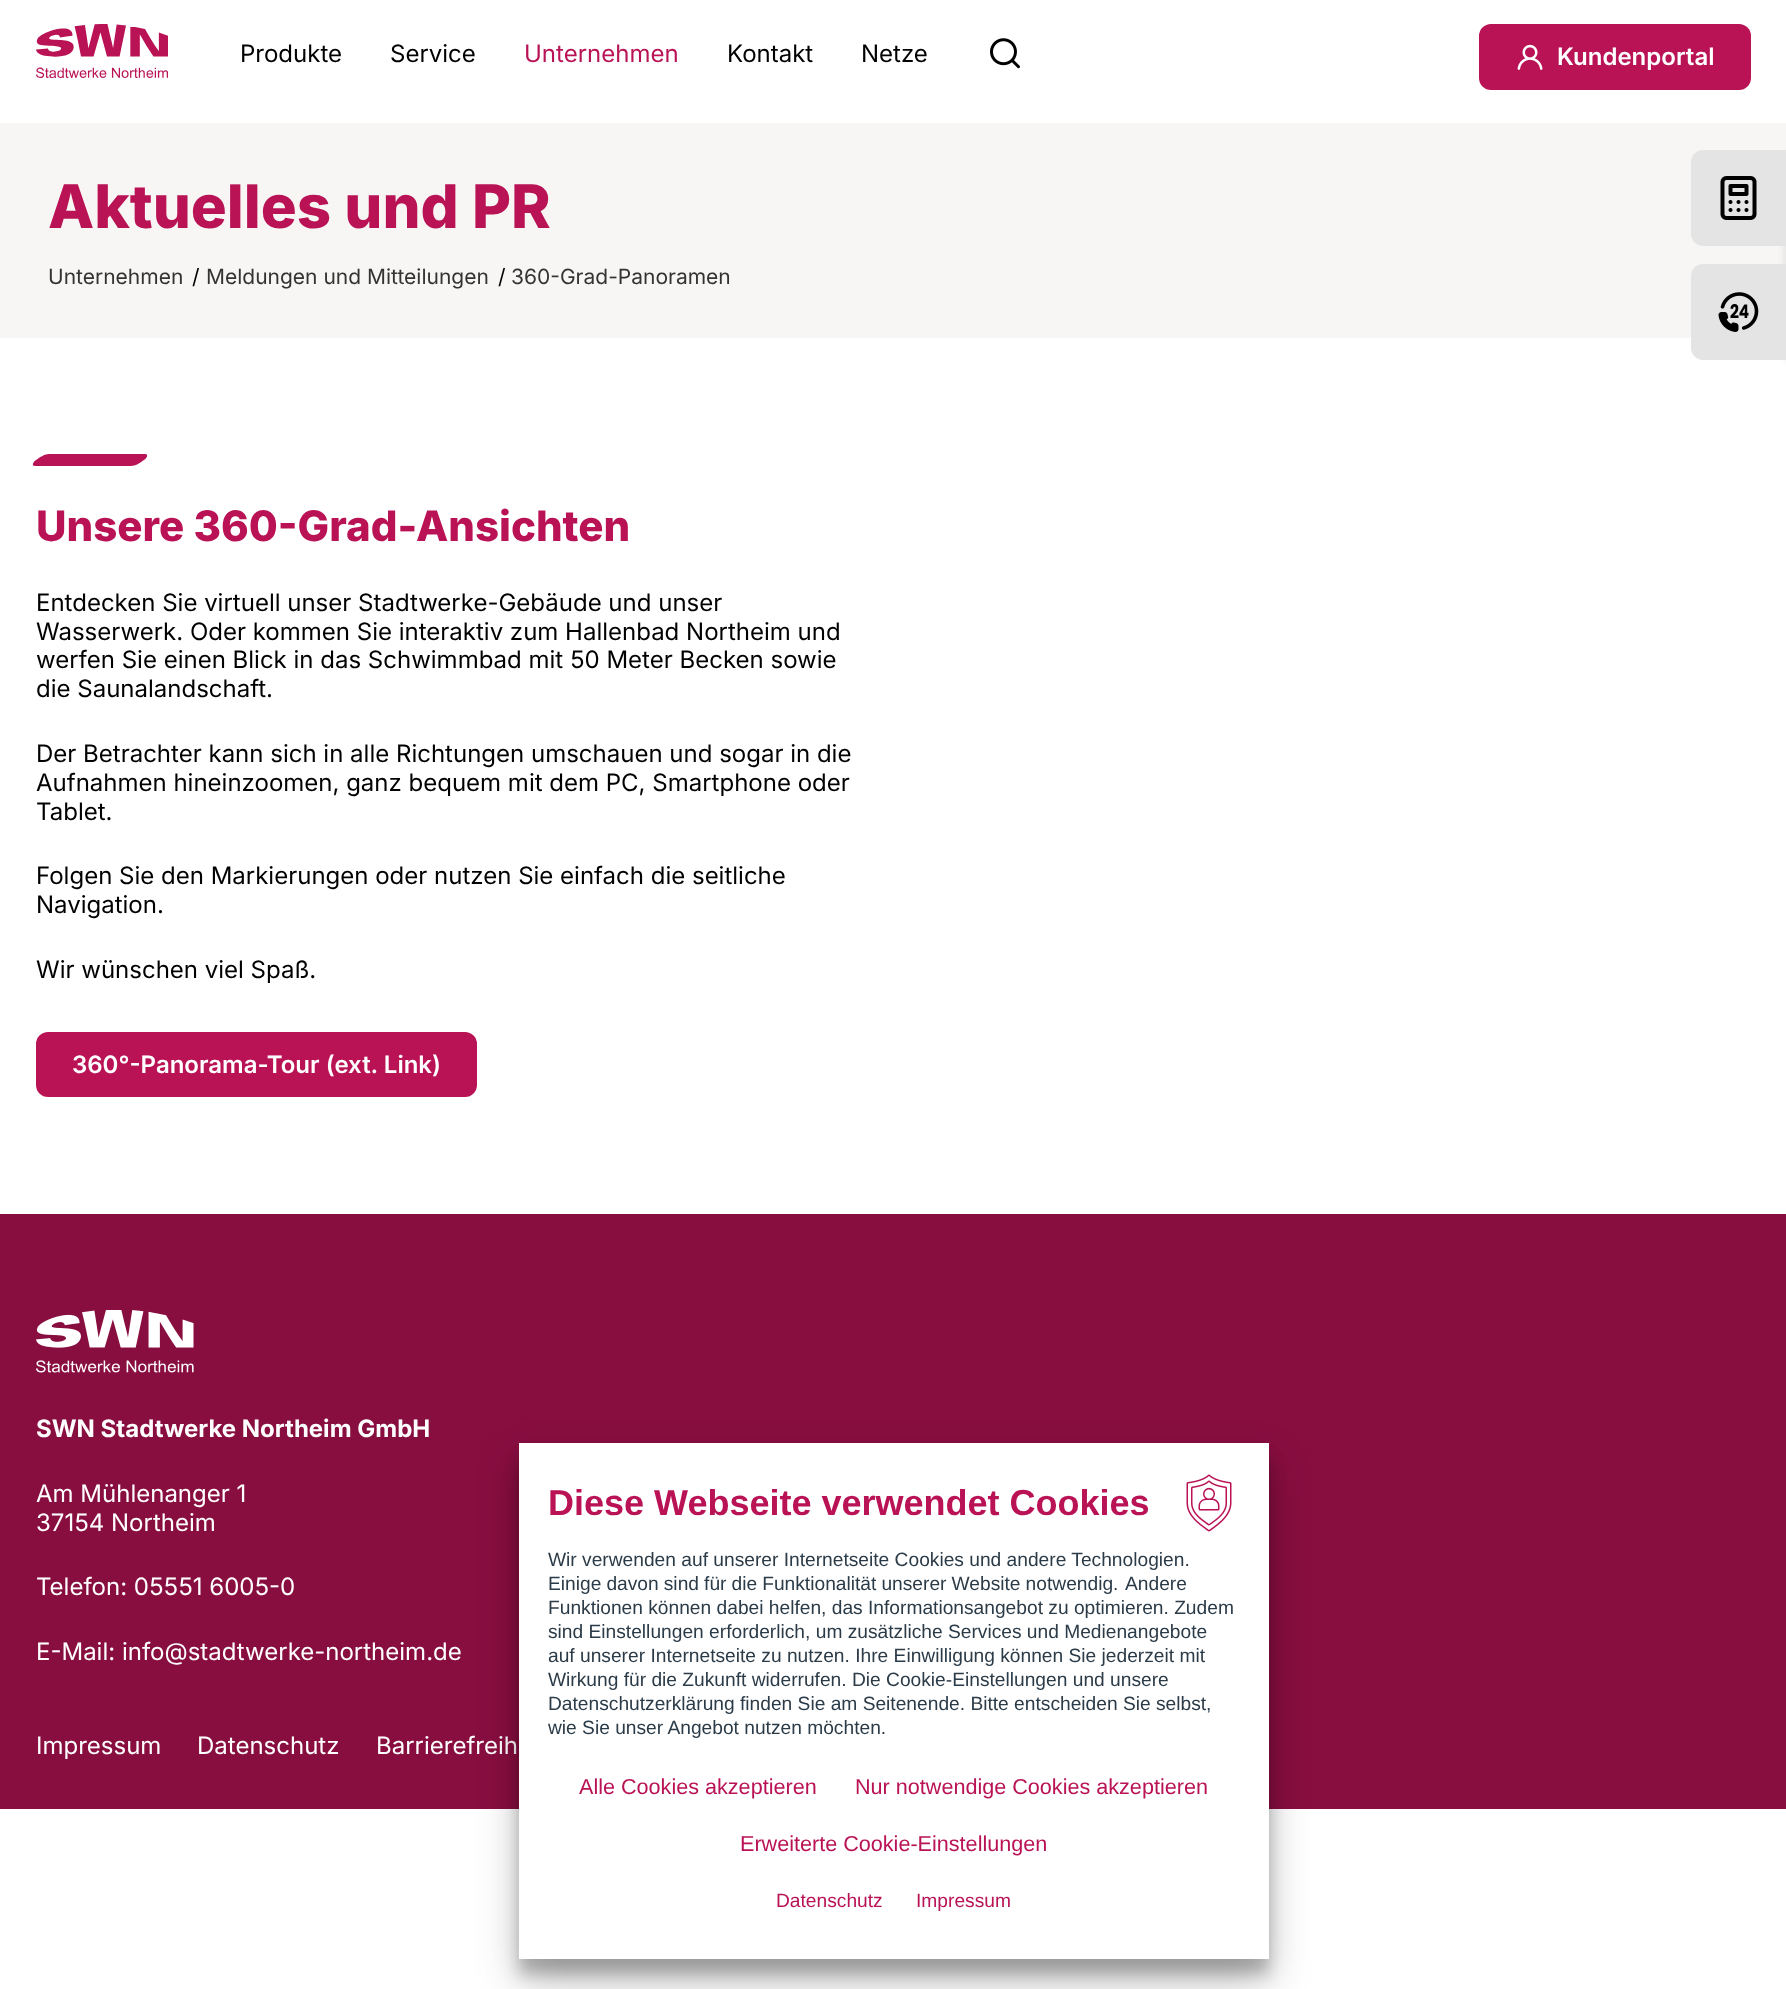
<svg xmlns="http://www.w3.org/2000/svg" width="1786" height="1989">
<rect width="100%" height="100%" fill="#fff"/>
<image x="36" y="24" width="132" height="54" href="media/1.png"/>
<text x="240" y="62" style="font-family:Inter;font-size:24px;fill:#000">Produkte</text>
<text x="390" y="62" style="font-family:Inter;font-size:24px;fill:#000">Service</text>
<text x="524" y="62" style="font-family:Inter;font-size:24px;fill:#b91255">Unternehmen</text>
<text x="727" y="62" style="font-family:Inter;font-size:24px;fill:#000">Kontakt</text>
<text x="861" y="62" style="font-family:Inter;font-size:24px;fill:#000">Netze</text>
<image x="990" y="38" width="30" height="31" href="media/2.png"/>
<rect x="1479" y="24" width="272" height="66" rx="12" fill="#b91255"/>
<image x="1517" y="44" width="26" height="26" href="media/3.png"/>
<text x="1557" y="65" style="font-family:Inter;font-size:24px;font-weight:600;fill:#fff">Kundenportal</text>
<rect y="123" width="1786" height="215" fill="#f7f6f4"/>
<text x="48" y="228" style="font-family:Inter;font-size:60px;font-weight:800;fill:#b91255">Aktuelles und PR</text>
<text x="48" y="284" style="font-family:Inter;font-size:21px;fill:#333">Unternehmen</text>
<text x="192" y="284" style="font-family:Inter;font-size:21px;fill:#000">/</text>
<text x="206" y="284" style="font-family:Inter;font-size:21px;fill:#333">Meldungen und Mitteilungen</text>
<text x="498" y="284" style="font-family:Inter;font-size:21px;fill:#000">/</text>
<text x="511" y="284" style="font-family:Inter;font-size:21px;fill:#333">360-Grad-Panoramen</text>
<rect x="1784" y="150" width="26" height="216" rx="15" fill="#00000014" filter="blur(3px)"/>
<path d="M1703 150h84v96h-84c-6.5 0-12-5.5-12-12v-72c0-6.5 5.5-12 12-12z" fill="#e4e4e4"/>
<image x="1720" y="176" width="37" height="44" href="media/4.png"/>
<path d="M1703 264h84v96h-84c-6.5 0-12-5.5-12-12v-72c0-6.5 5.5-12 12-12z" fill="#e4e4e4"/>
<image x="1718" y="292" width="41" height="40" href="media/5.png"/>
<path d="M49 454h96c3 0 3 3-1 6c-4 3-9 6-13 6h-96c-3 0-3-3 1-6c4-3 9-6 13-6z" fill="#b91255"/>
<text x="36" y="541" style="font-family:Inter;font-size:42px;font-weight:800;fill:#b91255">Unsere 360-Grad-Ansichten</text>
<text x="36" y="611" style="font-family:Inter;font-size:24px;fill:#000">Entdecken Sie virtuell unser Stadtwerke-Gebäude und unser</text>
<text x="36" y="640" style="font-family:Inter;font-size:24px;fill:#000">Wasserwerk. Oder kommen Sie interaktiv zum Hallenbad Northeim und</text>
<text x="36" y="668" style="font-family:Inter;font-size:24px;fill:#000">werfen Sie einen Blick in das Schwimmbad mit 50 Meter Becken sowie</text>
<text x="36" y="697" style="font-family:Inter;font-size:24px;fill:#000">die Saunalandschaft.</text>
<text x="36" y="762" style="font-family:Inter;font-size:24px;fill:#000">Der Betrachter kann sich in alle Richtungen umschauen und sogar in die</text>
<text x="36" y="791" style="font-family:Inter;font-size:24px;fill:#000">Aufnahmen hineinzoomen, ganz bequem mit dem PC, Smartphone oder</text>
<text x="36" y="820" style="font-family:Inter;font-size:24px;fill:#000">Tablet.</text>
<text x="36" y="884" style="font-family:Inter;font-size:24px;fill:#000">Folgen Sie den Markierungen oder nutzen Sie einfach die seitliche</text>
<text x="36" y="913" style="font-family:Inter;font-size:24px;fill:#000">Navigation.</text>
<text x="36" y="978" style="font-family:Inter;font-size:24px;fill:#000">Wir wünschen viel Spaß.</text>
<rect x="36" y="1032" width="441" height="65" rx="12" fill="#b91255"/>
<text x="72" y="1073" style="font-family:Inter;font-size:24px;font-weight:600;fill:#fff">360°-Panorama-Tour (ext. Link)</text>
<rect y="1214" width="1786" height="595" fill="#880e40"/>
<image x="36" y="1310" width="158" height="63" href="media/6.png"/>
<text x="36" y="1437" style="font-family:Inter;font-size:24px;font-weight:bold;fill:#fff">SWN Stadtwerke Northeim GmbH</text>
<text x="36" y="1502" style="font-family:Inter;font-size:24px;fill:#fff">Am Mühlenanger 1</text>
<text x="36" y="1531" style="font-family:Inter;font-size:24px;fill:#fff">37154 Northeim</text>
<text x="36" y="1595" style="font-family:Inter;font-size:24px;fill:#fff">Telefon: 05551 6005-0</text>
<text x="36" y="1660" style="font-family:Inter;font-size:24px;fill:#fff">E-Mail: info@stadtwerke-northeim.de</text>
<text x="36" y="1754" style="font-family:Inter;font-size:24px;fill:#fff">Impressum</text>
<text x="197" y="1754" style="font-family:Inter;font-size:24px;fill:#fff">Datenschutz</text>
<text x="376" y="1754" style="font-family:Inter;font-size:24px;fill:#fff">Barrierefreih</text>
<rect x="519" y="1458" width="750" height="516" fill="#00000038" filter="blur(7.5px)"/>
<rect x="519" y="1464" width="750" height="516" fill="#00000040" filter="blur(21px)"/>
<rect x="519" y="1443" width="750" height="516" fill="#fff"/>
<text x="548" y="1515" style="font-family:Liberation Sans;font-size:36px;font-weight:bold;fill:#b91255">Diese Webseite verwendet Cookies</text>
<image x="1186" y="1474" width="46" height="58" href="media/7.png"/>
<text x="548" y="1566" style="font-family:Liberation Sans;font-size:19.2px;fill:#2b3b48">Wir verwenden auf unserer Internetseite Cookies und andere Technologien.</text>
<text x="548" y="1590" word-spacing="-0.25" style="font-family:Liberation Sans;font-size:19.2px;fill:#2b3b48">Einige davon sind für die Funktionalität unserer Website notwendig.</text>
<text x="1125" y="1590" style="font-family:Liberation Sans;font-size:19.2px;fill:#2b3b48">Andere</text>
<text x="548" y="1614" style="font-family:Liberation Sans;font-size:19.2px;fill:#2b3b48">Funktionen können dabei helfen, das Informationsangebot zu optimieren. Zudem</text>
<text x="548" y="1638" style="font-family:Liberation Sans;font-size:19.2px;fill:#2b3b48">sind Einstellungen erforderlich, um zusätzliche Services und Medienangebote</text>
<text x="548" y="1662" style="font-family:Liberation Sans;font-size:19.2px;fill:#2b3b48">auf unserer Internetseite zu nutzen. Ihre Einwilligung können Sie jederzeit mit</text>
<text x="548" y="1686" style="font-family:Liberation Sans;font-size:19.2px;fill:#2b3b48">Wirkung für die Zukunft widerrufen. Die Cookie-Einstellungen und unsere</text>
<text x="548" y="1710" style="font-family:Liberation Sans;font-size:19.2px;fill:#2b3b48">Datenschutzerklärung finden Sie am Seitenende. Bitte entscheiden Sie selbst,</text>
<text x="548" y="1734" style="font-family:Liberation Sans;font-size:19.2px;fill:#2b3b48">wie Sie unser Angebot nutzen möchten.</text>
<text x="579" y="1794" style="font-family:Liberation Sans;font-size:21.6px;fill:#b91255">Alle Cookies akzeptieren</text>
<text x="855" y="1794" style="font-family:Liberation Sans;font-size:21.6px;fill:#b91255">Nur notwendige Cookies akzeptieren</text>
<text x="740" y="1851" style="font-family:Liberation Sans;font-size:21.6px;fill:#b91255">Erweiterte Cookie-Einstellungen</text>
<text x="776" y="1907" style="font-family:Liberation Sans;font-size:19.2px;fill:#b91255">Datenschutz</text>
<text x="916" y="1907" style="font-family:Liberation Sans;font-size:19.2px;fill:#b91255">Impressum</text>
</svg>
